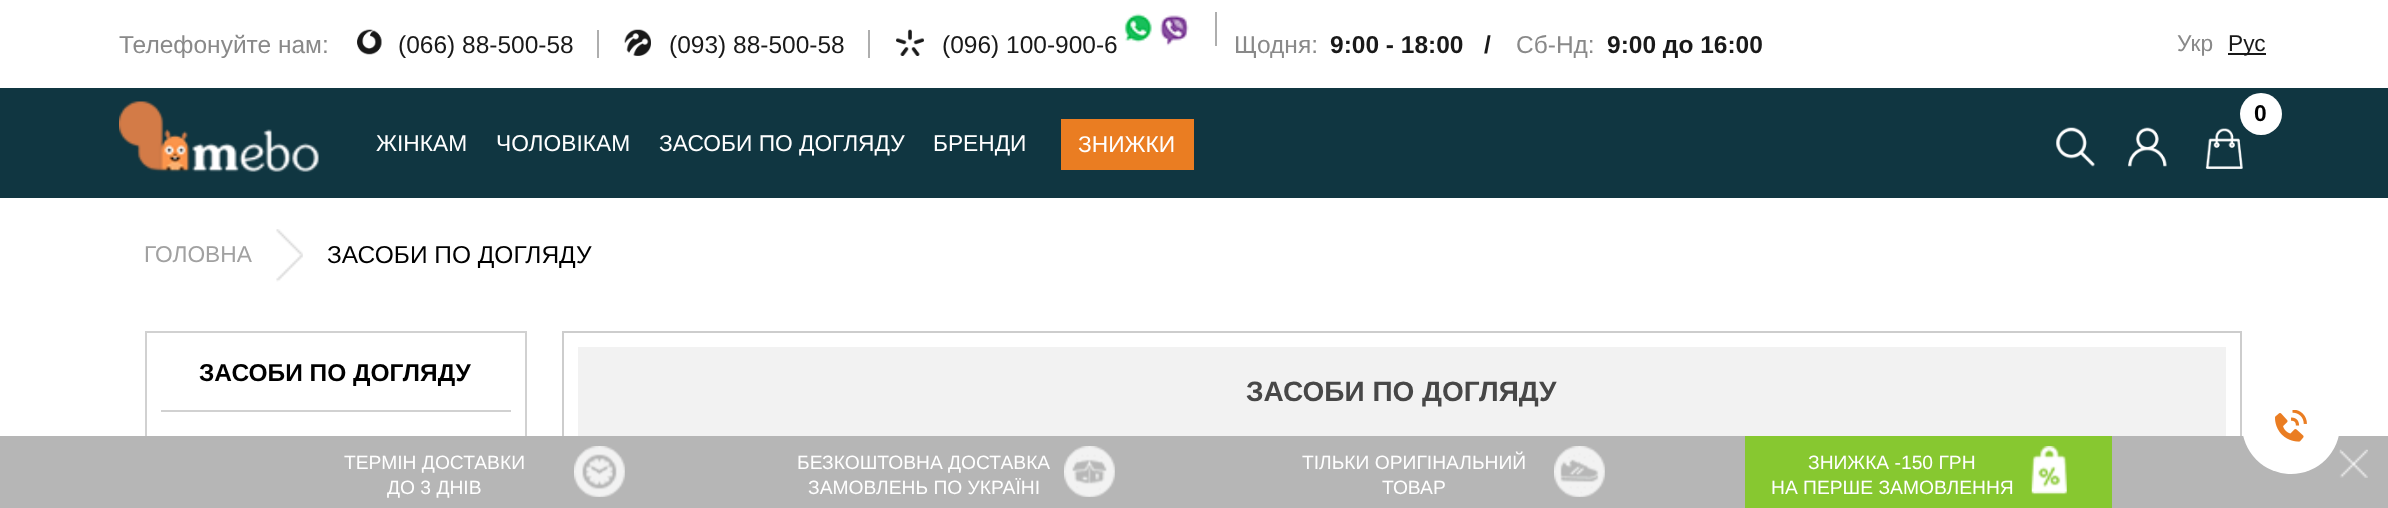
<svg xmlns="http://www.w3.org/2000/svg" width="2388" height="508">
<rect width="100%" height="100%" fill="#fff"/>
<text x="119" y="53" style="font-family:Liberation Sans;font-size:24.5px;fill:#898989">Телефонуйте нам:</text>
<image x="357" y="29" width="25" height="26" href="media/1.png"/>
<text x="398" y="53" style="font-family:Liberation Sans;font-size:24.5px;fill:#191919">(066) 88-500-58</text>
<rect x="597" y="30" width="2" height="28" fill="#aeaeae"/>
<image x="624" y="29" width="27" height="27" href="media/2.png"/>
<text x="669" y="53" style="font-family:Liberation Sans;font-size:24.5px;fill:#191919">(093) 88-500-58</text>
<rect x="868" y="30" width="2" height="28" fill="#aeaeae"/>
<image x="896" y="29" width="28" height="27" href="media/3.png"/>
<rect x="1215" y="12" width="2" height="34" fill="#aeaeae"/>
<text x="942" y="53" style="font-family:Liberation Sans;font-size:24.5px;fill:#191919">(096) 100-900-6</text>
<image x="1124" y="13" width="28" height="30" href="media/4.png"/>
<image x="1160" y="15" width="29" height="31" href="media/5.png"/>
<text x="1234" y="53" style="font-family:Liberation Sans;font-size:24.5px;fill:#898989">Щодня:</text>
<text x="1330" y="53" style="font-family:Liberation Sans;font-size:24.5px;font-weight:bold;fill:#191919" xml:space="preserve">9:00 - 18:00   /</text>
<text x="1516" y="53" style="font-family:Liberation Sans;font-size:24.5px;fill:#898989">Сб-Нд:</text>
<text x="1607" y="53" style="font-family:Liberation Sans;font-size:24.5px;font-weight:bold;fill:#191919">9:00 до 16:00</text>
<text x="2177" y="51" style="font-family:Liberation Sans;font-size:22.75px;fill:#898989">Укр</text>
<rect x="2228" y="53" width="38" height="2" fill="#191919"/>
<text x="2228" y="51" style="font-family:Liberation Sans;font-size:22.75px;fill:#191919">Рус</text>
<rect y="88" width="2388" height="110" fill="#103641"/>
<image x="119" y="101" width="200" height="71" href="media/6.png"/>
<image x="2205" y="128" width="38" height="41" href="media/7.png"/>
<circle cx="2261" cy="114" r="21" fill="#fff"/>
<text x="2254" y="121" style="font-family:Liberation Sans;font-size:22.75px;font-weight:bold;fill:#000">0</text>
<image x="2056" y="127" width="39" height="40" href="media/8.png"/>
<image x="2128" y="127" width="39" height="40" href="media/9.png"/>
<text x="376" y="151" style="font-family:Liberation Sans;font-size:22.75px;fill:#fff">ЖІНКАМ</text>
<text x="496" y="151" style="font-family:Liberation Sans;font-size:22.75px;fill:#fff">ЧОЛОВІКАМ</text>
<text x="659" y="151" style="font-family:Liberation Sans;font-size:22.75px;fill:#fff">ЗАСОБИ ПО ДОГЛЯДУ</text>
<text x="933" y="151" style="font-family:Liberation Sans;font-size:22.75px;fill:#fff">БРЕНДИ</text>
<rect x="1061" y="119" width="133" height="51" fill="#ea7d22"/>
<text x="1078" y="152" style="font-family:Liberation Sans;font-size:22.75px;fill:#fff">ЗНИЖКИ</text>
<text x="144" y="262" style="font-family:Liberation Sans;font-size:22.75px;fill:#a1a1a1">ГОЛОВНА</text>
<image x="276" y="229" width="27" height="53" href="media/10.png"/>
<text x="327" y="263" style="font-family:Liberation Sans;font-size:24.5px;fill:#000">ЗАСОБИ ПО ДОГЛЯДУ</text>
<rect x="146" y="332" width="380" height="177" fill="none" stroke="#d1d1d1" stroke-width="2"/>
<rect x="161" y="410" width="350" height="2" fill="#d1d1d1"/>
<text x="199" y="381" style="font-family:Liberation Sans;font-size:24.5px;font-weight:bold;fill:#000">ЗАСОБИ ПО ДОГЛЯДУ</text>
<rect x="563" y="332" width="1678" height="120" fill="none" stroke="#cdcdcd" stroke-width="2"/>
<rect x="578" y="347" width="1648" height="89" fill="#f2f2f2"/>
<text x="1246" y="401" style="font-family:Liberation Sans;font-size:28px;font-weight:bold;fill:#474747">ЗАСОБИ ПО ДОГЛЯДУ</text>
<rect y="436" width="2388" height="72" fill="#b6b6b6"/>
<text x="344" y="469" style="font-family:Liberation Sans;font-size:19.25px;fill:#fff">ТЕРМІН ДОСТАВКИ</text>
<text x="387" y="494" style="font-family:Liberation Sans;font-size:19.25px;fill:#fff">ДО 3 ДНІВ</text>
<image x="574" y="446" width="51" height="51" href="media/11.png"/>
<text x="797" y="469" style="font-family:Liberation Sans;font-size:19.25px;fill:#fff">БЕЗКОШТОВНА ДОСТАВКА</text>
<text x="808" y="494" style="font-family:Liberation Sans;font-size:19.25px;fill:#fff">ЗАМОВЛЕНЬ ПО УКРАЇНІ</text>
<image x="1064" y="446" width="51" height="51" href="media/12.png"/>
<text x="1302" y="469" style="font-family:Liberation Sans;font-size:19.25px;fill:#fff">ТІЛЬКИ ОРИГІНАЛЬНИЙ</text>
<text x="1382" y="494" style="font-family:Liberation Sans;font-size:19.25px;fill:#fff">ТОВАР</text>
<image x="1554" y="446" width="51" height="51" href="media/13.png"/>
<rect x="1745" y="436" width="367" height="72" fill="#87c830"/>
<text x="1808" y="469" style="font-family:Liberation Sans;font-size:19.25px;fill:#fff">ЗНИЖКА -150 ГРН</text>
<text x="1771" y="494" style="font-family:Liberation Sans;font-size:19.25px;fill:#fff">НА ПЕРШЕ ЗАМОВЛЕННЯ</text>
<image x="2031" y="446" width="36" height="49" href="media/14.png"/>
<image x="2339" y="449" width="29" height="29" href="media/15.png"/>
<circle cx="2291" cy="425" r="49" fill="#fff"/>
<image x="2275" y="410" width="32" height="32" href="media/16.png"/>
</svg>
